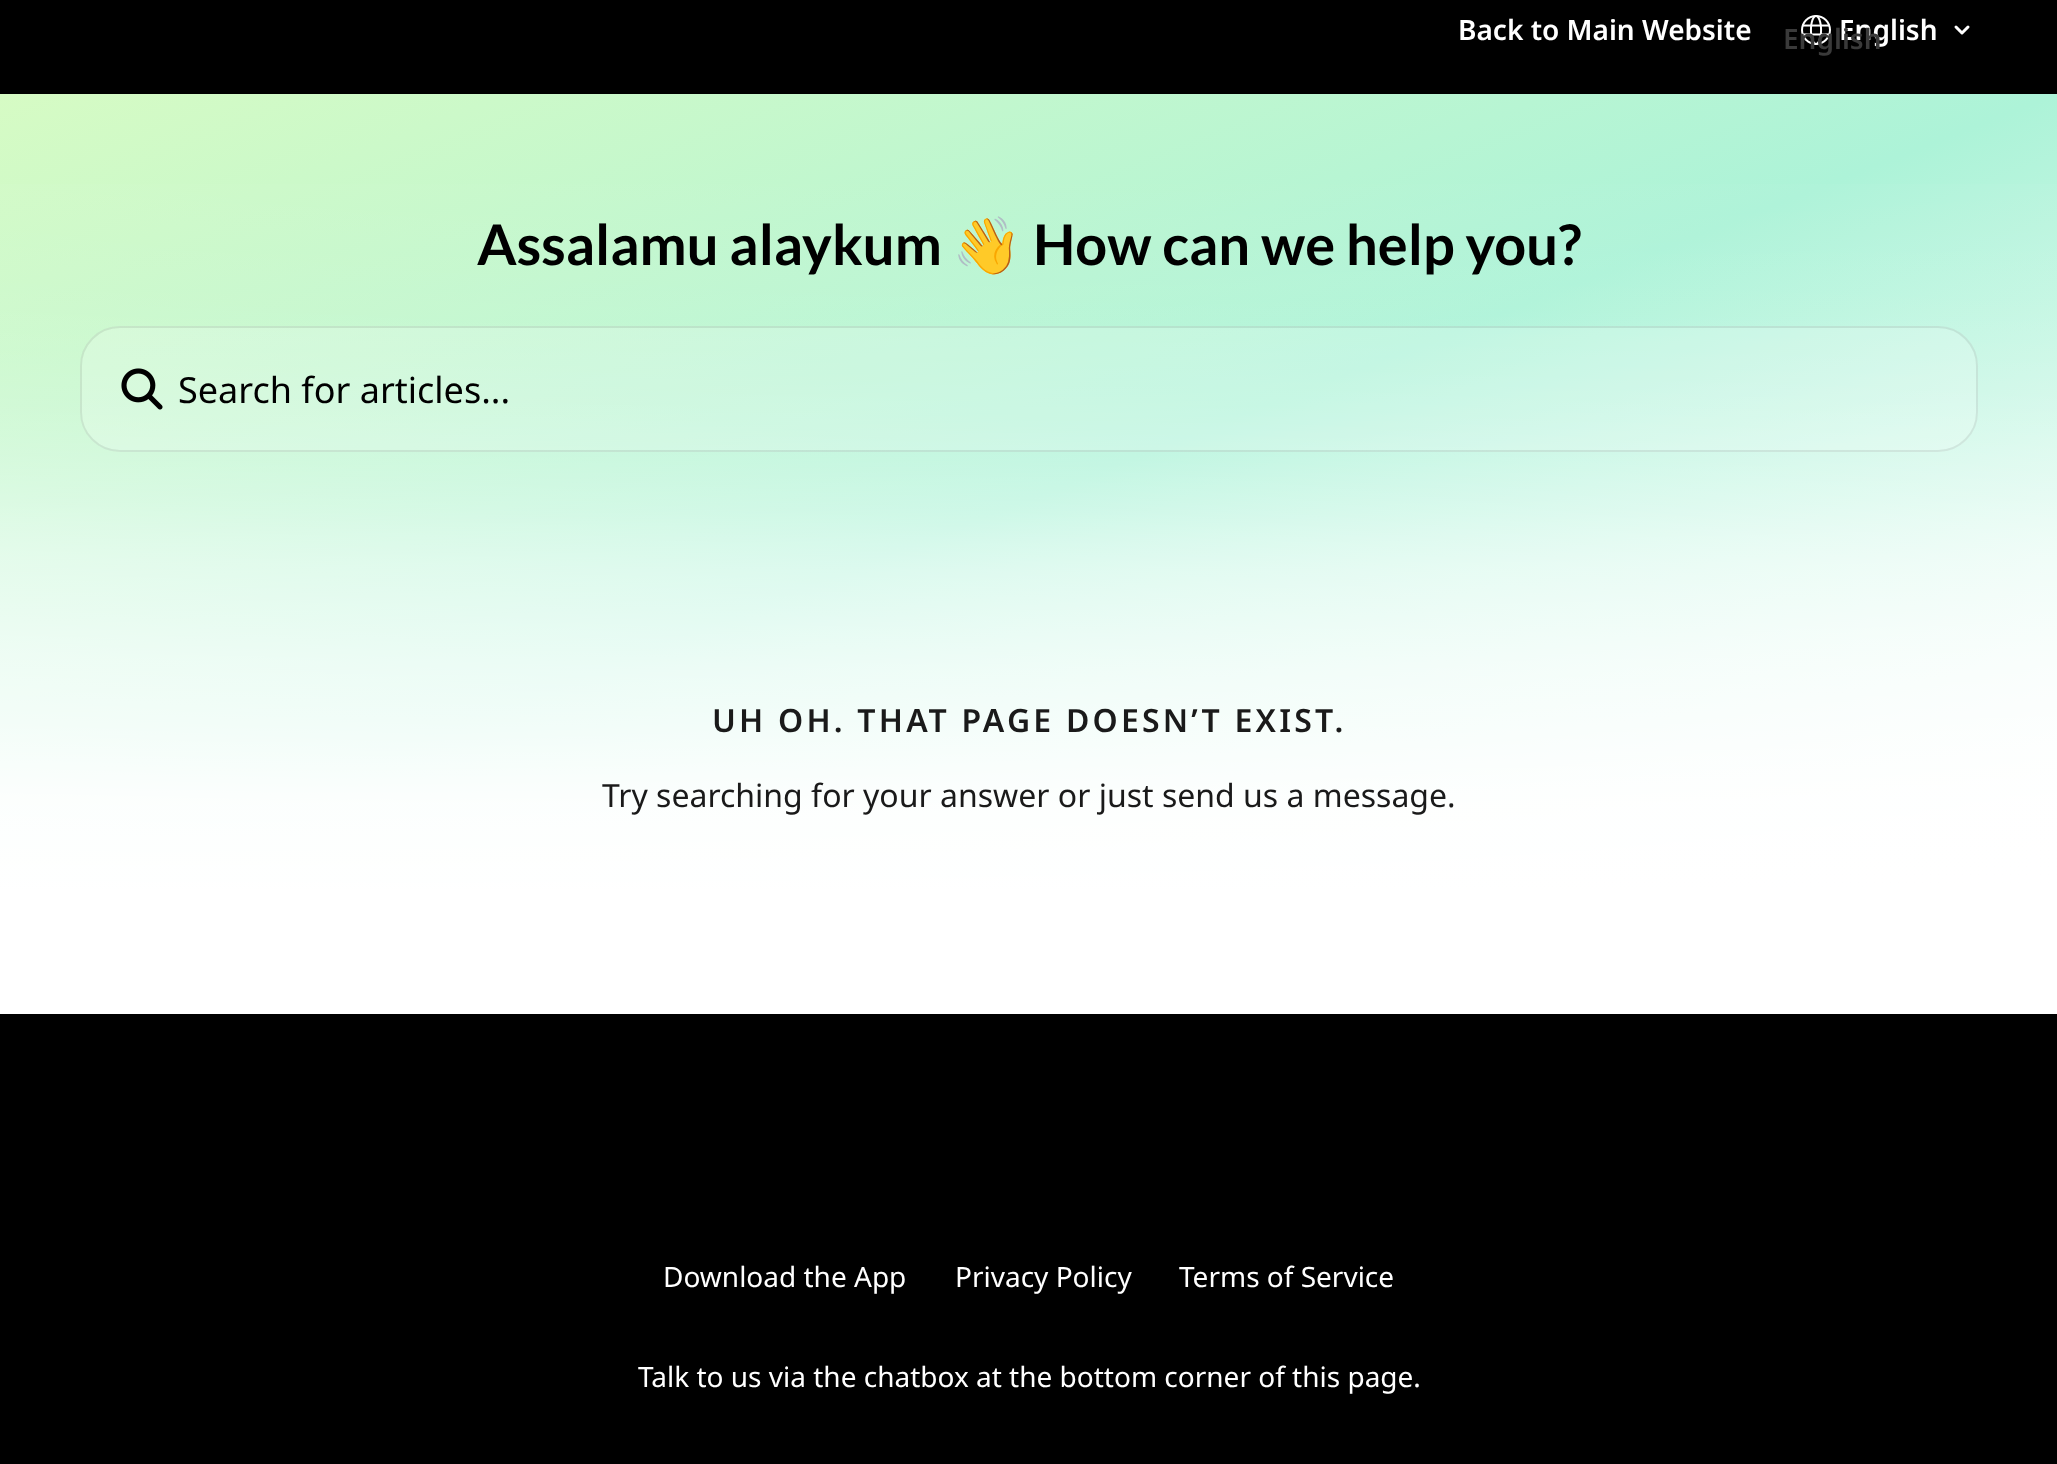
<svg xmlns="http://www.w3.org/2000/svg" width="2057" height="1464">
<defs>
<linearGradient id="g1" gradientUnits="userSpaceOnUse" x1="753" y1="-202" x2="1305" y2="1200"><stop offset="0" stop-color="#d6fbc4"/><stop offset="0.5" stop-color="#adf3d8"/><stop offset="1" stop-color="#fff"/></linearGradient>
<radialGradient id="g2" gradientUnits="userSpaceOnUse" cx="0" cy="0" r="1" gradientTransform="matrix(6861 0 0 810 1029 94)"><stop offset="0" stop-color="#fff" stop-opacity="0"/><stop offset="0.12" stop-color="#fff" stop-opacity="0.01"/><stop offset="0.21" stop-color="#fff" stop-opacity="0.04"/><stop offset="0.29" stop-color="#fff" stop-opacity="0.07"/><stop offset="0.35" stop-color="#fff" stop-opacity="0.12"/><stop offset="0.4" stop-color="#fff" stop-opacity="0.18"/><stop offset="0.44" stop-color="#fff" stop-opacity="0.25"/><stop offset="0.48" stop-color="#fff" stop-opacity="0.33"/><stop offset="0.52" stop-color="#fff" stop-opacity="0.41"/><stop offset="0.55" stop-color="#fff" stop-opacity="0.49"/><stop offset="0.59" stop-color="#fff" stop-opacity="0.58"/><stop offset="0.65" stop-color="#fff" stop-opacity="0.67"/><stop offset="0.71" stop-color="#fff" stop-opacity="0.76"/><stop offset="0.79" stop-color="#fff" stop-opacity="0.84"/><stop offset="0.88" stop-color="#fff" stop-opacity="0.96"/><stop offset="1" stop-color="#fff"/></radialGradient>
</defs>
<rect width="100%" height="100%" fill="#fff"/>
<rect width="2057" height="94" fill="#000"/>
<text x="1458" y="40" style="font-family:Noto Sans;font-size:28px;font-weight:600;fill:#fff">Back to Main Website</text>
<image x="1801" y="15" width="30" height="30" href="media/1.png"/>
<text x="1839" y="40" style="font-family:Noto Sans;font-size:28px;font-weight:600;fill:#fff">English</text>
<text x="1783" y="49" style="font-family:Noto Sans;font-size:28px;font-weight:600;fill:#3a3a3a">English</text>
<path d="M1956 27l6 6l6-6" fill="none" stroke="#fff" stroke-width="3" stroke-linecap="round" stroke-linejoin="round"/>
<rect y="94" width="2057" height="795" fill="url(#g1)"/>
<rect y="184" width="2057" height="705" fill="url(#g2)"/>
<text x="477" y="265" style="font-family:Lato;font-size:56px;font-weight:bold;fill:#000">Assalamu alaykum</text>
<text x="952" y="265" style="font-family:Noto Color Emoji;font-size:56px;font-weight:bold;fill:#000">👋</text>
<text x="1033" y="265" style="font-family:Lato;font-size:56px;font-weight:bold;fill:#000">How can we help you?</text>
<rect x="80" y="326" width="1898" height="126" rx="40" fill="#ffffff33"/>
<rect x="81" y="327" width="1896" height="124" rx="39" fill="none" stroke="#00000014" stroke-width="2"/>
<image x="121" y="368" width="42" height="42" href="media/2.png"/>
<text x="178" y="403" style="font-family:Noto Sans;font-size:36px;fill:#000">Search for articles...</text>
<text x="712" y="732" style="font-family:Noto Sans;font-size:32px;font-weight:600;letter-spacing:3.2px;fill:#1a1a1a">UH OH. THAT PAGE DOESN’T EXIST.</text>
<text x="602" y="807" style="font-family:Noto Sans;font-size:32px;fill:#1a1a1a">Try searching for your answer or just send us a message.</text>
<rect y="1014" width="2057" height="450" fill="#000"/>
<text x="663" y="1287" style="font-family:Noto Sans;font-size:28px;fill:#fff">Download the App</text>
<text x="955" y="1287" style="font-family:Noto Sans;font-size:28px;fill:#fff">Privacy Policy</text>
<text x="1179" y="1287" style="font-family:Noto Sans;font-size:28px;fill:#fff">Terms of Service</text>
<text x="638" y="1387" style="font-family:Noto Sans;font-size:28px;fill:#fff">Talk to us via the chatbox at the bottom corner of this page.</text>
</svg>
